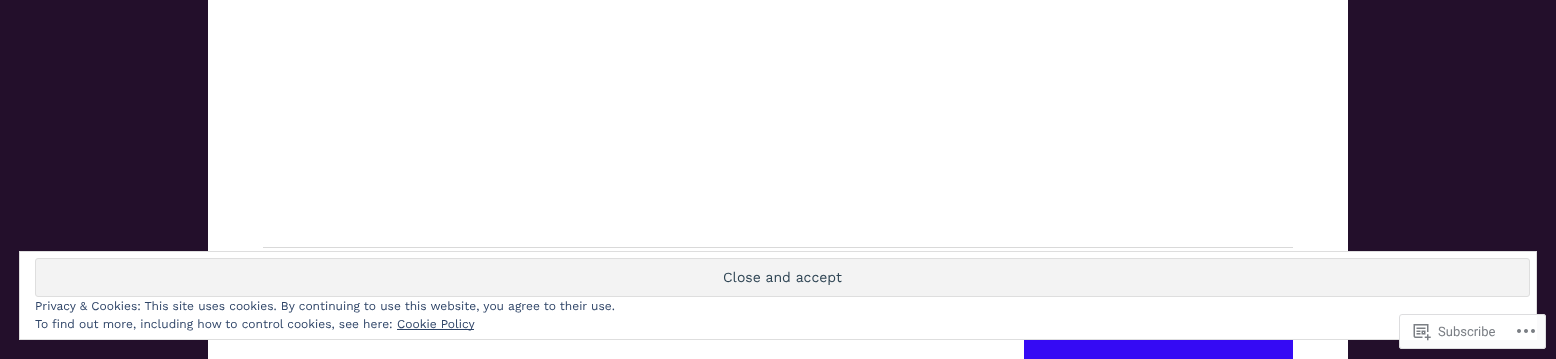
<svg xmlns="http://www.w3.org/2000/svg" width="1556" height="359">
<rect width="100%" height="100%" fill="#230f2b"/>
<rect x="208" width="1140" height="359" fill="#fff"/>
<rect x="263" y="247" width="1030" height="1" fill="#d9d9d9"/>
<rect x="1024" y="340" width="269" height="19" fill="#350af4"/>
<rect x="19.5" y="251.5" width="1517" height="88" fill="#fff" stroke="#dedede"/>
<rect x="35.5" y="258.5" width="1494" height="38" rx="2.5" fill="#f3f3f3" stroke="#dedede"/>
<text x="723" y="282" style="font-family:Work Sans;font-size:14px;fill:#2e4453">Close and accept</text>
<text x="35" y="310" style="font-family:Work Sans;font-size:12px;fill:#2e4467">Privacy &amp; Cookies: This site uses cookies. By continuing to use this website, you agree to their use.</text>
<text x="35" y="328" style="font-family:Work Sans;font-size:12px;fill:#2e4467">To find out more, including how to control cookies, see here:</text>
<rect x="397" y="329" width="77" height="1" fill="#2e4467"/>
<text x="397" y="328" style="font-family:Work Sans;font-size:12px;fill:#2e4467">Cookie Policy</text>
<rect x="1399" y="314" width="147" height="35" rx="3" fill="#fffffffa"/>
<rect x="1399.5" y="314.5" width="146" height="34" rx="2.5" fill="none" stroke="#dcdcdefa"/>
<image x="1413" y="324" width="18" height="17" href="media/1.png"/>
<text x="1438" y="336" style="font-family:Roboto;font-size:13px;fill:#7b7f85">Subscribe</text>
<image x="1517" y="329" width="18" height="4" href="media/2.png"/>
</svg>
